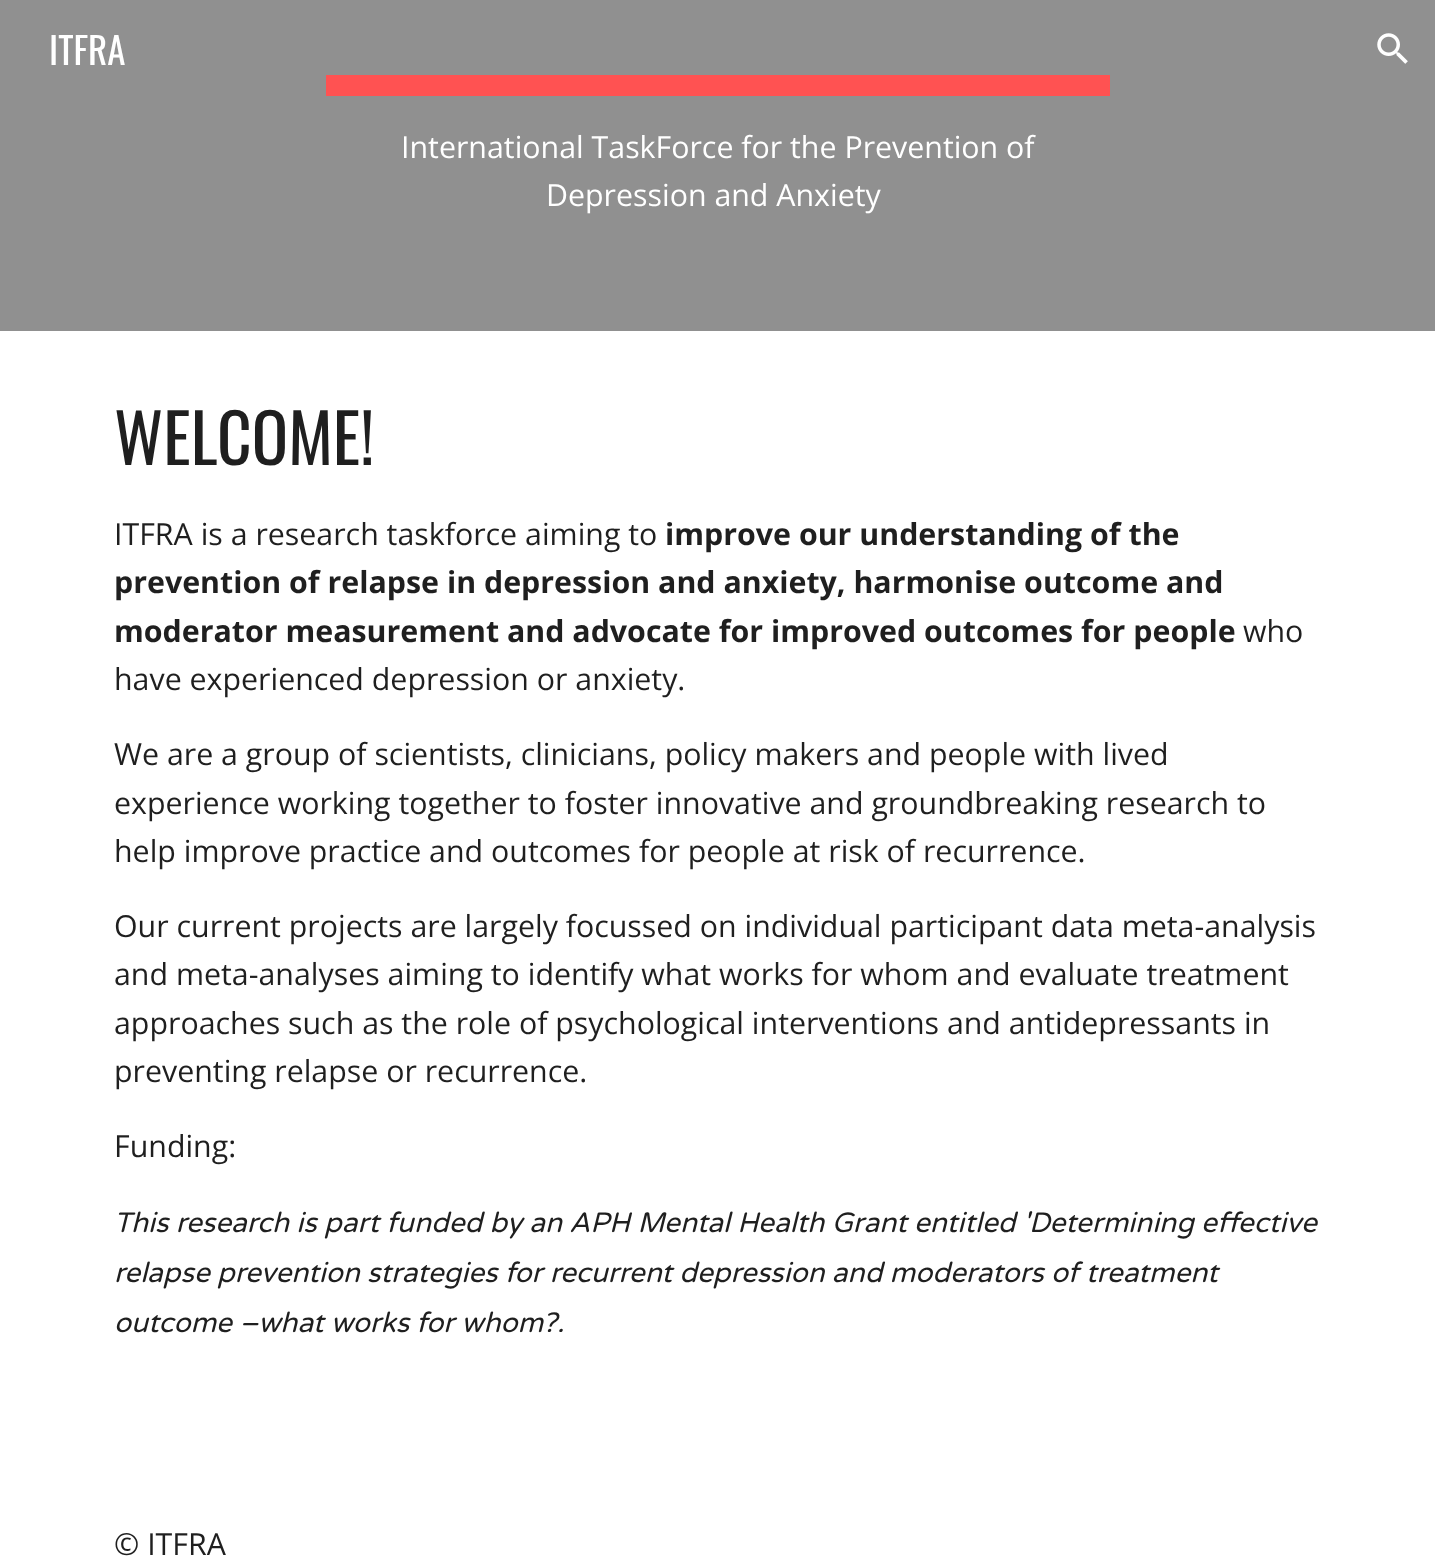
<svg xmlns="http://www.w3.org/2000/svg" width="1435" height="1565">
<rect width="100%" height="100%" fill="#fff"/>
<rect width="1435" height="331" fill="#909090"/>
<text x="49" y="65" style="font-family:Oswald;font-size:37px;fill:#fff">ITFRA</text>
<image x="1377" y="33" width="31" height="31" href="media/1.png"/>
<rect x="326" y="75" width="784" height="21" fill="#ff5252"/>
<text x="401" y="158" style="font-family:Open Sans;font-size:30.35px;fill:#fff">International TaskForce for the Prevention of</text>
<text x="546" y="206" style="font-family:Open Sans;font-size:30.35px;fill:#fff">Depression and Anxiety</text>
<text x="114" y="465" style="font-family:Oswald;font-size:67.5px;fill:#1f1f1f">WELCOME!</text>
<text x="114" y="545" style="font-family:Open Sans;font-size:30.35px;fill:#1f1f1f">ITFRA is a research taskforce aiming to</text>
<text x="665" y="545" style="font-family:Open Sans;font-size:30.35px;font-weight:bold;fill:#1f1f1f">improve our understanding of the</text>
<text x="114" y="593" style="font-family:Open Sans;font-size:30.35px;font-weight:bold;fill:#1f1f1f">prevention of relapse in depression and anxiety, harmonise outcome and</text>
<text x="114" y="642" style="font-family:Open Sans;font-size:30.35px;font-weight:bold;fill:#1f1f1f">moderator measurement and advocate for improved outcomes for people</text>
<text x="1243" y="642" style="font-family:Open Sans;font-size:30.35px;fill:#1f1f1f">who</text>
<text x="114" y="690" style="font-family:Open Sans;font-size:30.35px;fill:#1f1f1f">have experienced depression or anxiety.</text>
<text x="114" y="765" style="font-family:Open Sans;font-size:30.35px;fill:#1f1f1f">We are a group of scientists, clinicians, policy makers and people with lived</text>
<text x="114" y="814" style="font-family:Open Sans;font-size:30.35px;fill:#1f1f1f">experience working together to foster innovative and groundbreaking research to</text>
<text x="114" y="862" style="font-family:Open Sans;font-size:30.35px;fill:#1f1f1f">help improve practice and outcomes for people at risk of recurrence.</text>
<text x="114" y="937" style="font-family:Open Sans;font-size:30.35px;fill:#1f1f1f">Our current projects are largely focussed on individual participant data meta-analysis</text>
<text x="114" y="985" style="font-family:Open Sans;font-size:30.35px;fill:#1f1f1f">and meta-analyses aiming to identify what works for whom and evaluate treatment</text>
<text x="114" y="1034" style="font-family:Open Sans;font-size:30.35px;fill:#1f1f1f">approaches such as the role of psychological interventions and antidepressants in</text>
<text x="114" y="1082" style="font-family:Open Sans;font-size:30.35px;fill:#1f1f1f">preventing relapse or recurrence.</text>
<text x="114" y="1157" style="font-family:Open Sans;font-size:30.35px;fill:#1f1f1f">Funding:</text>
<text x="114" y="1232" style="font-family:Varela Round;font-size:28px;font-style:italic;fill:#1f1f1f">This research is part funded by an APH Mental Health Grant entitled '</text>
<text x="1029" y="1232" style="font-family:Varela Round;font-size:28px;font-style:italic;fill:#1f1f1f">Determining effective</text>
<text x="114" y="1282" style="font-family:Varela Round;font-size:28px;font-style:italic;fill:#1f1f1f">relapse prevention strategies for recurrent depression and moderators of treatment</text>
<text x="114" y="1332" style="font-family:Varela Round;font-size:28px;font-style:italic;fill:#1f1f1f">outcome –what works for whom</text>
<text x="543" y="1332" style="font-family:Varela Round;font-size:28px;font-style:italic;fill:#1f1f1f">?.</text>
<text x="114" y="1555" style="font-family:Open Sans;font-size:30.35px;fill:#1f1f1f">© ITFRA</text>
</svg>
